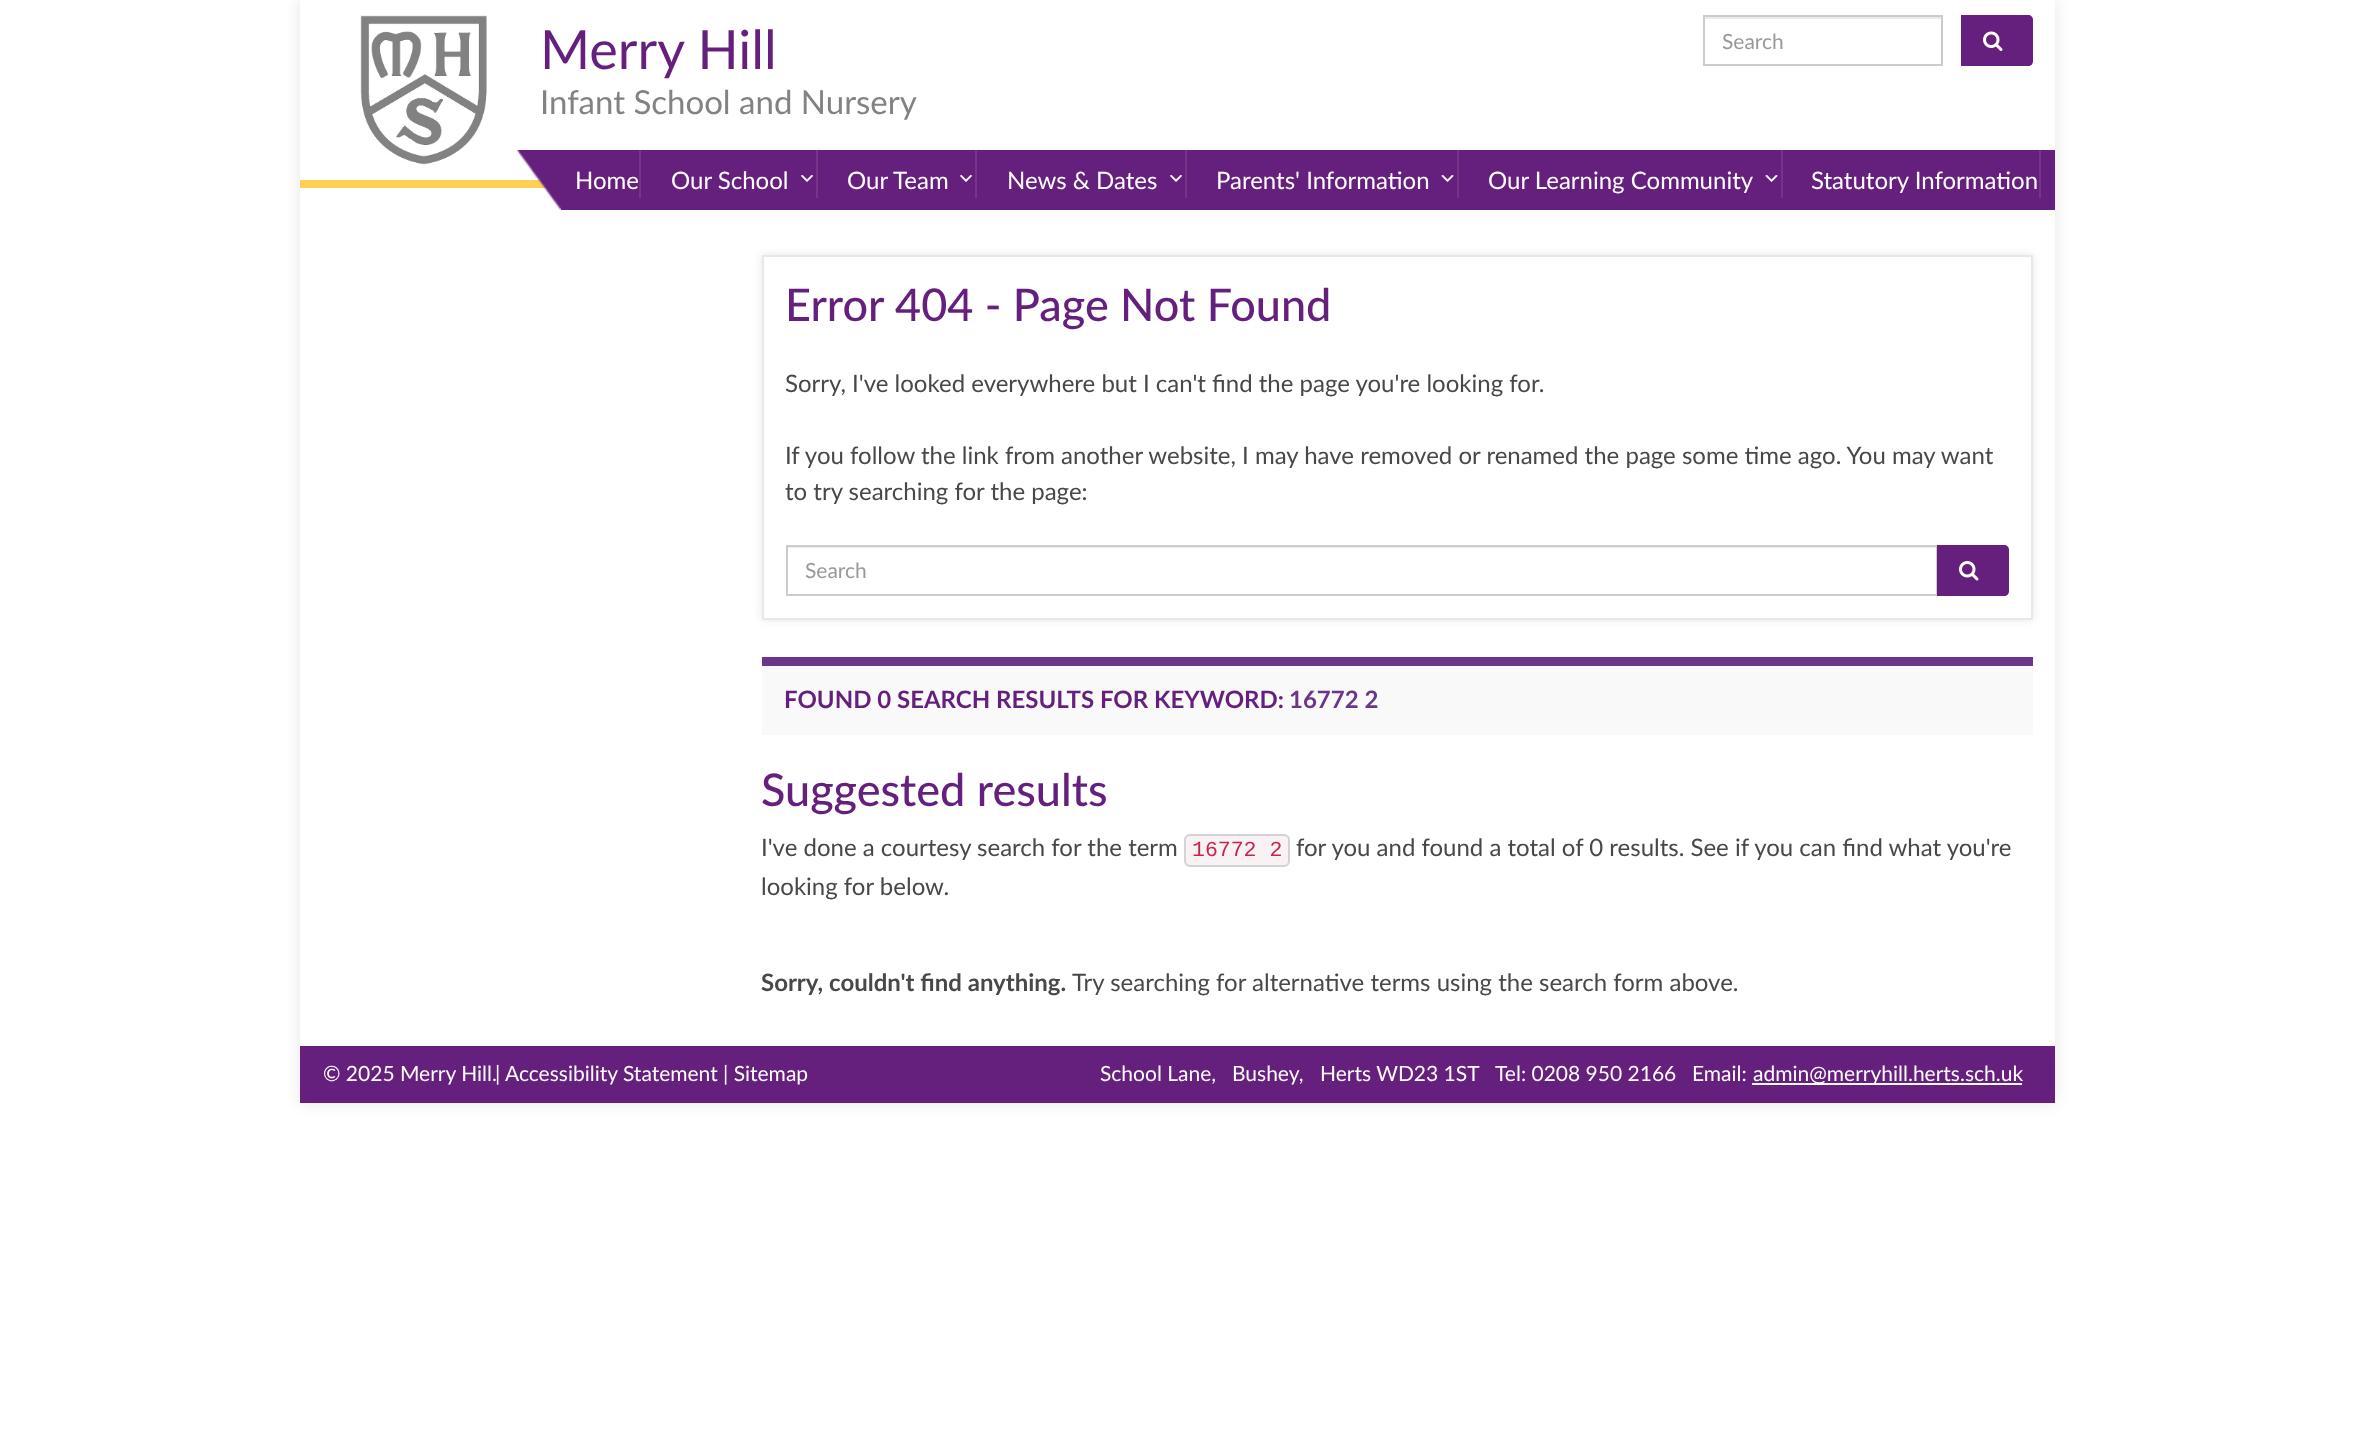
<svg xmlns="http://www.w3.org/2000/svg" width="2355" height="1431">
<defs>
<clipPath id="clip1"><path d="M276 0h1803v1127h-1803zm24 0h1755v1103h-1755z" clip-rule="evenodd"/></clipPath>
</defs>
<rect width="100%" height="100%" fill="#fff"/>
<g clip-path="url(#clip1)">
<rect x="300" width="1755" height="1103" fill="#0000001a" filter="blur(7.5px)"/>
</g>
<text x="540" y="69" style="font-family:Lato;font-size:54px;fill:#651f7c">Merry Hill</text>
<text x="540" y="114" style="font-family:Lato;font-size:33px;fill:#828282">Infant School and Nursery</text>
<rect x="300" y="180" width="247" height="8" fill="#ffcf54"/>
<image x="516" y="150" width="45" height="60" href="media/1.png"/>
<rect x="561" y="150" width="1494" height="60" fill="#651f7c"/>
<rect x="639" y="150" width="2" height="48" fill="#743589"/>
<text x="575" y="189" style="font-family:Lato;font-size:24px;fill:#fff">Home</text>
<rect x="816" y="150" width="2" height="48" fill="#743589"/>
<text x="671" y="189" style="font-family:Lato;font-size:24px;fill:#fff">Our School</text>
<image x="800" y="175" width="14" height="7" href="media/2.png"/>
<rect x="975" y="150" width="2" height="48" fill="#743589"/>
<text x="847" y="189" style="font-family:Lato;font-size:24px;fill:#fff">Our Team</text>
<image x="959" y="175" width="14" height="7" href="media/2.png"/>
<rect x="1185" y="150" width="2" height="48" fill="#743589"/>
<text x="1007" y="189" style="font-family:Lato;font-size:24px;fill:#fff">News &amp; Dates</text>
<image x="1169" y="175" width="14" height="7" href="media/2.png"/>
<rect x="1457" y="150" width="2" height="48" fill="#743589"/>
<text x="1216" y="189" style="font-family:Lato;font-size:24px;fill:#fff">Parents' Information</text>
<image x="1441" y="175" width="13" height="7" href="media/3.png"/>
<rect x="1781" y="150" width="2" height="48" fill="#743589"/>
<text x="1488" y="189" style="font-family:Lato;font-size:24px;fill:#fff">Our Learning Community</text>
<image x="1765" y="175" width="13" height="7" href="media/3.png"/>
<rect x="2039" y="150" width="2" height="48" fill="#743589"/>
<text x="1811" y="189" style="font-family:Lato;font-size:24px;fill:#fff">Statutory Information</text>
<image x="360" y="15" width="127" height="150" href="media/4.png"/>
<rect x="1704" y="17" width="237" height="2" fill="#ececec"/>
<rect x="1704" y="16" width="238" height="49" fill="none" stroke="#ccc" stroke-width="2"/>
<text x="1722" y="49" style="font-family:Lato;font-size:21px;fill:#999">Search</text>
<path d="M1961 15h67c3 0 5 2 5 5v41c0 3-2 5-5 5h-67z" fill="#651f7c"/>
<image x="1983" y="31" width="20" height="20" href="media/5.png"/>
<rect x="762" y="255" width="1271" height="365" fill="#0000001a" filter="blur(4px)"/>
<rect x="763" y="256" width="1269" height="363" fill="#fff" stroke="#e9e8e3" stroke-width="2"/>
<text x="785" y="321" style="font-family:Lato;font-size:45px;font-weight:500;fill:#651f7c">Error 404 - Page Not Found</text>
<text x="785" y="392" style="font-family:Lato;font-size:24px;fill:#4a474b">Sorry, I've looked everywhere but I can't find the page you're looking for.</text>
<text x="785" y="464" style="font-family:Lato;font-size:24px;fill:#4a474b">If you follow the link from another website, I may have removed or renamed the page some time ago. You may want</text>
<text x="785" y="500" style="font-family:Lato;font-size:24px;fill:#4a474b">to try searching for the page:</text>
<rect x="788" y="547" width="1149" height="1" fill="#ececec"/>
<rect x="787" y="546" width="1150" height="49" fill="none" stroke="#ccc" stroke-width="2"/>
<text x="805" y="578" style="font-family:Lato;font-size:21px;fill:#999">Search</text>
<path d="M1937 545h67c3 0 5 2 5 5v41c0 3-2 5-5 5h-67z" fill="#651f7c"/>
<image x="1959" y="561" width="20" height="20" href="media/6.png"/>
<rect x="762" y="666" width="1271" height="69" fill="#f9f9f9"/>
<rect x="762" y="657" width="1271" height="9" fill="#6b3589"/>
<text x="784" y="708" style="font-family:Lato;font-size:24px;font-weight:bold;fill:#651f7c">FOUND 0 SEARCH RESULTS FOR KEYWORD:</text>
<text x="1289" y="708" style="font-family:Lato;font-size:24px;font-weight:bold;fill:#6b3589">16772 2</text>
<text x="761" y="806" style="font-family:Lato;font-size:45px;font-weight:500;fill:#651f7c">Suggested results</text>
<text x="761" y="856" style="font-family:Lato;font-size:24px;fill:#4a474b">I've done a courtesy search for the term</text>
<rect x="1185" y="835" width="104" height="31" rx="5" fill="#f9f2f4" stroke="#d3d3d3" stroke-width="2"/>
<text x="1192" y="856" style="font-family:Liberation Mono;font-size:21.5px;fill:#c7254e">16772 2</text>
<text x="1296" y="856" style="font-family:Lato;font-size:24px;fill:#4a474b">for you and found a total of 0 results. See if you can find what you're</text>
<text x="761" y="895" style="font-family:Lato;font-size:24px;fill:#4a474b">looking for below.</text>
<text x="761" y="991" style="font-family:Lato;font-size:24px;font-weight:bold;fill:#4a474b">Sorry, couldn't find anything.</text>
<text x="1072" y="991" style="font-family:Lato;font-size:24px;fill:#4a474b">Try searching for alternative terms using the search form above.</text>
<rect x="300" y="1046" width="1755" height="57" fill="#651f7c"/>
<text x="323" y="1081" style="font-family:Lato;font-size:21px;fill:#fff">© 2025 Merry Hill.</text>
<text x="495" y="1081" style="font-family:Lato;font-size:21px;fill:#fff">|</text>
<text x="505" y="1081" style="font-family:Lato;font-size:21px;fill:#fff">Accessibility Statement | Sitemap</text>
<text x="1100" y="1081" style="font-family:Lato;font-size:21px;fill:#fff">School Lane,</text>
<text x="1232" y="1081" style="font-family:Lato;font-size:21px;fill:#fff">Bushey,</text>
<text x="1320" y="1081" style="font-family:Lato;font-size:21px;fill:#fff">Herts WD23 1ST</text>
<text x="1495" y="1081" style="font-family:Lato;font-size:21px;fill:#fff">Tel: 0208 950 2166</text>
<text x="1692" y="1081" style="font-family:Lato;font-size:21px;fill:#fff">Email:</text>
<rect x="1752" y="1083" width="270" height="2" fill="#fff"/>
<text x="1753" y="1081" style="font-family:Lato;font-size:21px;fill:#fff">admin@merryhill.herts.sch.uk</text>
</svg>
